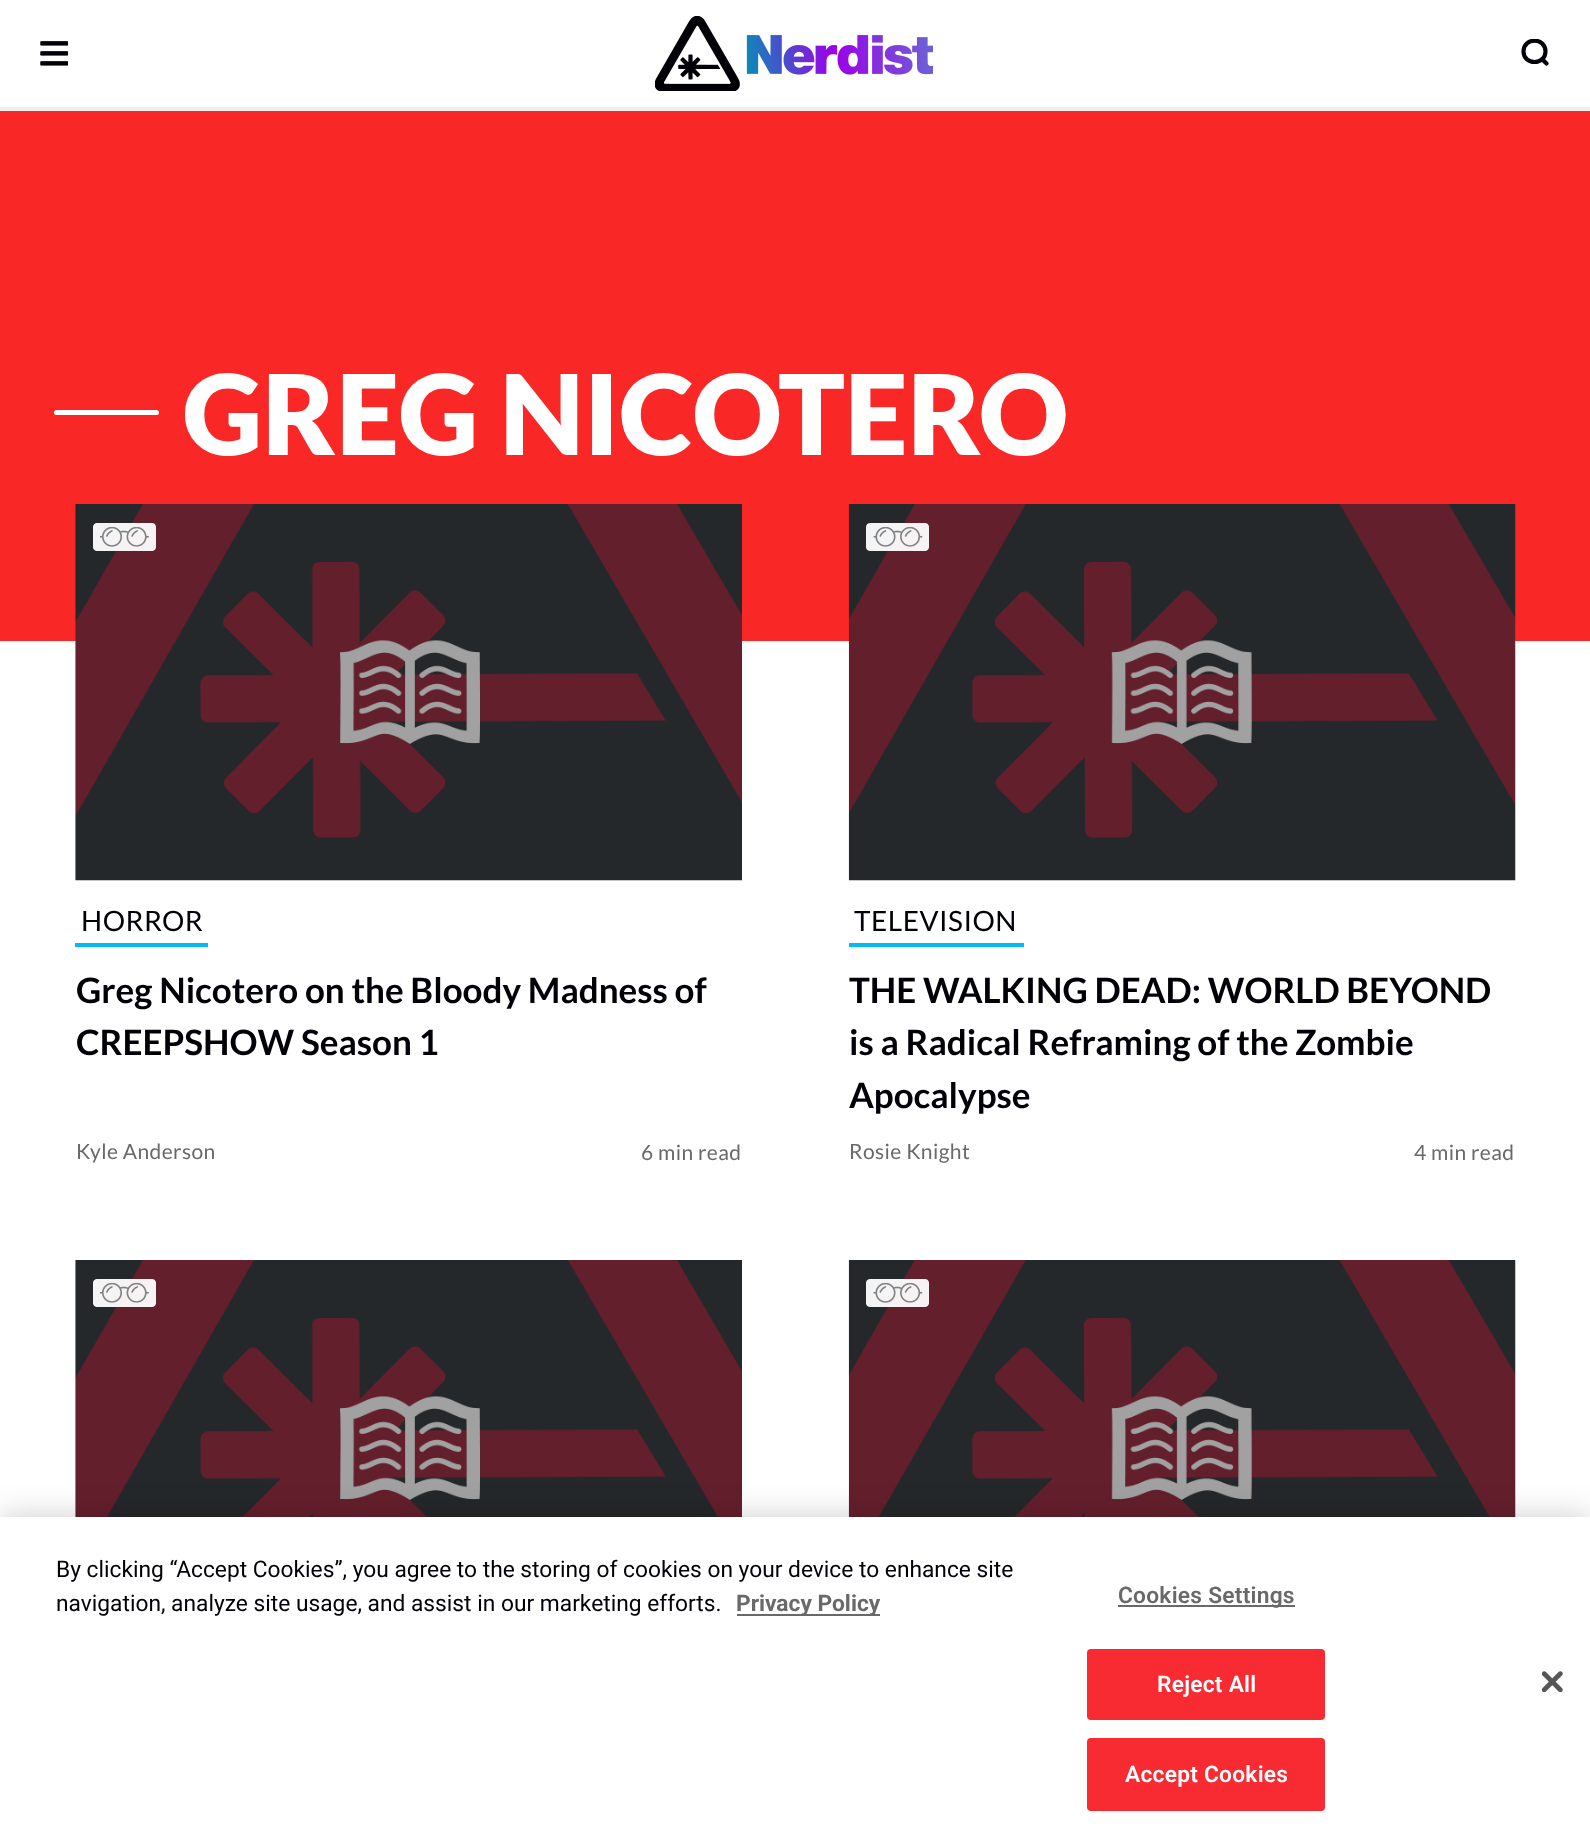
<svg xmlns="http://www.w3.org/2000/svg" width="1590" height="1845">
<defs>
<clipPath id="clip1"><rect x="1521" y="39" width="30" height="28"/></clipPath>
</defs>
<rect width="100%" height="100%" fill="#fa2727"/>
<rect width="1590" height="107" fill="#fff"/>
<rect y="107" width="1590" height="4" fill="#eee"/>
<image x="40" y="41" width="28" height="25" href="media/1.png"/>
<image x="655" y="16" width="278" height="75" href="media/2.png"/>
<g clip-path="url(#clip1)">
<path d="M1545.5 51.5c0 14-22 14-22 0c0-14.5 22-14.5 22 0zm1 12l-4.5-4.5" fill="none" stroke="#000006" stroke-width="4.1" stroke-linecap="round" stroke-linejoin="round"/>
</g>
<rect y="641" width="1590" height="876" fill="#fff"/>
<rect x="54" y="410" width="105" height="5" rx="2.5" fill="#fff"/>
<text x="183" y="455" style="font-family:Lato;font-size:111.25px;font-weight:900;fill:#fff">GREG NICOTERO</text>
<image x="75" y="504" width="667" height="377" href="media/3.png"/>
<image x="93" y="523" width="63" height="28" href="media/4.png"/>
<text x="81" y="931" style="font-family:Lato;font-size:28px;letter-spacing:0.5px;fill:#000006">HORROR</text>
<rect x="75" y="943" width="133" height="4" fill="#01baf3"/>
<text x="76" y="1003" style="font-family:Lato;font-size:35px;font-weight:bold;fill:#000006">Greg Nicotero on the Bloody Madness of</text>
<text x="76" y="1055" style="font-family:Lato;font-size:35px;font-weight:bold;fill:#000006">CREEPSHOW Season 1</text>
<text x="76" y="1159" style="font-family:Lato;font-size:21px;letter-spacing:0.4px;fill:#696969">Kyle Anderson</text>
<text x="641" y="1160" style="font-family:Lato;font-size:21px;letter-spacing:0.4px;fill:#696969">6 min read</text>
<image x="848" y="504" width="668" height="377" href="media/5.png"/>
<image x="866" y="523" width="63" height="28" href="media/6.png"/>
<text x="854" y="931" style="font-family:Lato;font-size:28px;letter-spacing:0.5px;fill:#000006">TELEVISION</text>
<rect x="849" y="943" width="175" height="4" fill="#01baf3"/>
<text x="849" y="1003" style="font-family:Lato;font-size:35px;font-weight:bold;fill:#000006">THE WALKING DEAD: WORLD BEYOND</text>
<text x="849" y="1055" style="font-family:Lato;font-size:35px;font-weight:bold;fill:#000006">is a Radical Reframing of the Zombie</text>
<text x="849" y="1108" style="font-family:Lato;font-size:35px;font-weight:bold;fill:#000006">Apocalypse</text>
<text x="849" y="1159" style="font-family:Lato;font-size:21px;letter-spacing:0.4px;fill:#696969">Rosie Knight</text>
<text x="1414" y="1160" style="font-family:Lato;font-size:21px;letter-spacing:0.4px;fill:#696969">4 min read</text>
<image x="75" y="1260" width="667" height="257" href="media/7.png"/>
<image x="93" y="1279" width="63" height="28" href="media/4.png"/>
<image x="848" y="1260" width="668" height="257" href="media/8.png"/>
<image x="866" y="1279" width="63" height="28" href="media/6.png"/>
<rect y="1517" width="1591" height="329" fill="#00000033" filter="blur(16px)"/>
<rect y="1517" width="1590" height="328" fill="#fff"/>
<text x="56" y="1577" style="font-family:Roboto;font-size:22.75px;fill:#000006">By clicking “Accept Cookies”, you agree to the storing of cookies on your device to enhance site</text>
<text x="56" y="1611" style="font-family:Roboto;font-size:22.75px;fill:#000006">navigation, analyze site usage, and assist in our marketing efforts.</text>
<rect x="737" y="1614" width="143" height="2" fill="#696969"/>
<text x="736" y="1611" style="font-family:Roboto;font-size:22.75px;font-weight:bold;fill:#696969">Privacy Policy</text>
<rect x="1118" y="1605" width="177" height="2" fill="#696969"/>
<text x="1118" y="1603" style="font-family:Roboto;font-size:22.75px;font-weight:600;letter-spacing:0.25px;fill:#696969">Cookies Settings</text>
<rect x="1088" y="1650" width="236" height="69" rx="3" fill="#f72b31" stroke="#f72b31" stroke-width="2"/>
<text x="1157" y="1692" style="font-family:Roboto;font-size:22.75px;font-weight:600;letter-spacing:0.25px;fill:#fff">Reject All</text>
<rect x="1088" y="1739" width="236" height="71" rx="3" fill="#f72b31" stroke="#f72b31" stroke-width="2"/>
<text x="1125" y="1782" style="font-family:Roboto;font-size:22.75px;font-weight:600;letter-spacing:0.25px;fill:#fff">Accept Cookies</text>
<image x="1542" y="1671" width="21" height="21" href="media/9.png"/>
</svg>
